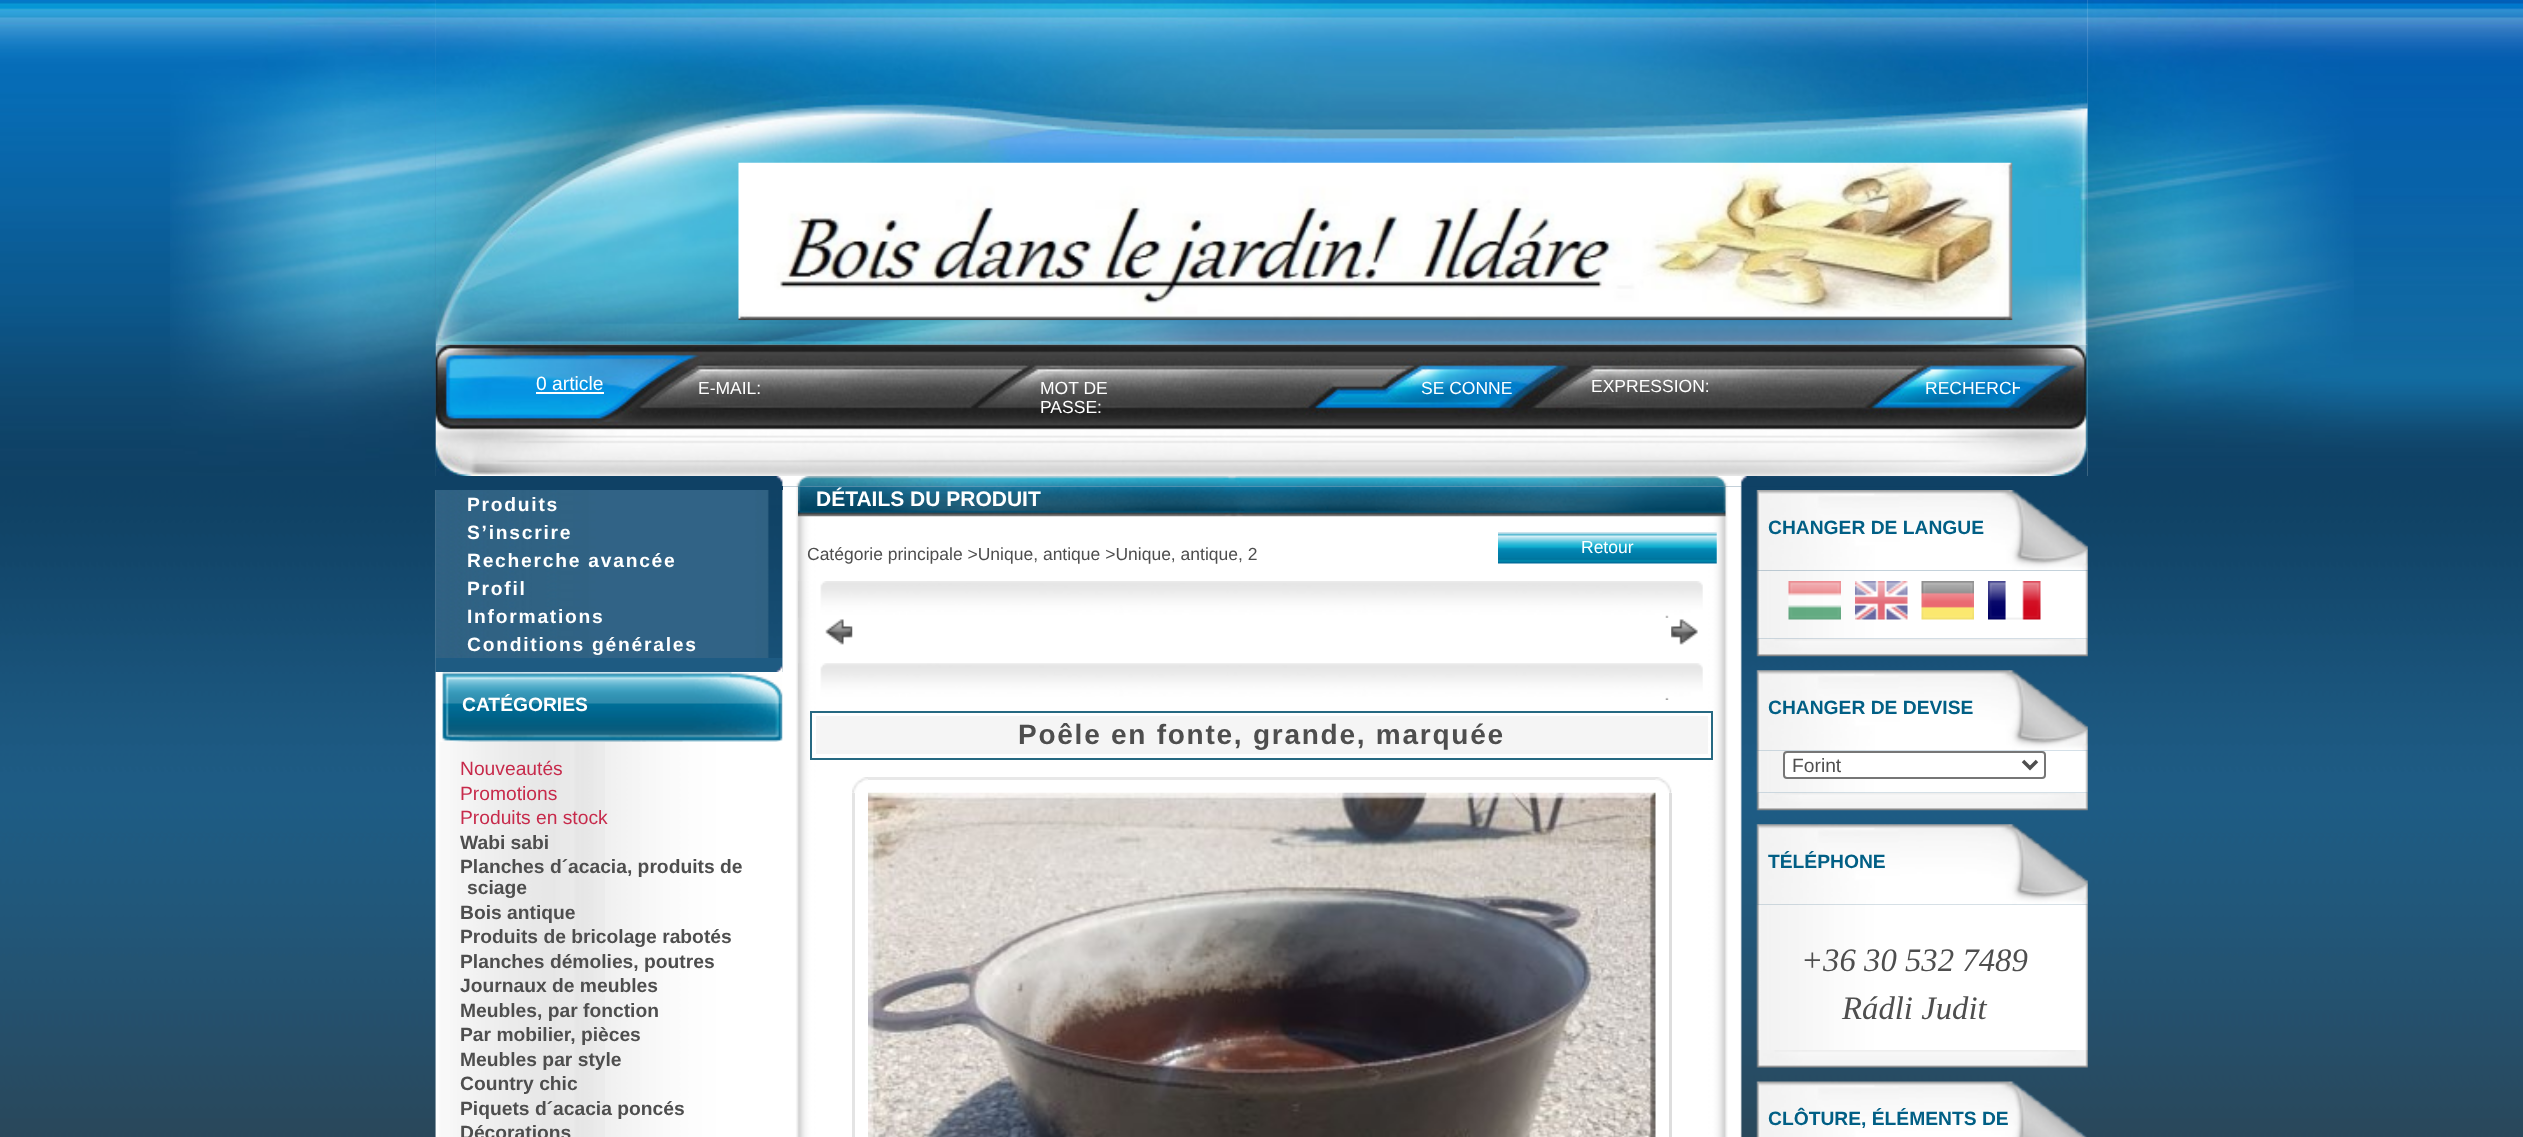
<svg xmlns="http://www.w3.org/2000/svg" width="2523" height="1137">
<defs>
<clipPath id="clip1"><rect x="1915" y="376" width="105" height="23"/></clipPath>
</defs>
<rect width="100%" height="100%" fill="#fff"/>
<image x="0" y="0" width="436" height="476" href="media/1.png"/>
<image x="170" y="0" width="266" height="476" href="media/2.png"/>
<image x="435" y="0" width="1653" height="345" href="media/3.png"/>
<image x="738" y="162" width="1275" height="159" href="media/4.png"/>
<image x="435" y="344" width="1653" height="132" href="media/5.png"/>
<text x="536" y="390" style="font-family:Liberation Sans;font-size:19.25px;fill:#fff">0 article</text>
<rect x="536" y="392" width="68" height="2" fill="#fff"/>
<text x="698" y="394" style="font-family:Liberation Sans;font-size:17.5px;fill:#fff">E-MAIL:</text>
<text x="1040" y="394" style="font-family:Liberation Sans;font-size:17.5px;fill:#fff">MOT DE</text>
<text x="1040" y="413" style="font-family:Liberation Sans;font-size:17.5px;fill:#fff">PASSE:</text>
<text x="1421" y="394" style="font-family:Liberation Sans;font-size:17.5px;fill:#fff">SE CONNE</text>
<text x="1591" y="392" style="font-family:Liberation Sans;font-size:17.5px;fill:#fff">EXPRESSION:</text>
<g clip-path="url(#clip1)">
<text x="1925" y="394" style="font-family:Liberation Sans;font-size:17.5px;fill:#fff">RECHERCH</text>
</g>
<image x="2087" y="0" width="436" height="476" href="media/6.png"/>
<image x="2087" y="0" width="267" height="448" href="media/7.png"/>
<image x="0" y="476" width="2523" height="661" href="media/8.png"/>
<image x="776" y="476" width="1236" height="11" href="media/9.png"/>
<image x="435" y="486" width="1307" height="651" href="media/10.png"/>
<image x="435" y="490" width="348" height="182" href="media/11.png"/>
<rect x="435" y="486" width="348" height="4" fill="#0f4165"/>
<image x="435" y="490" width="348" height="168" href="media/12.png"/>
<text x="467" y="511" style="font-family:Liberation Sans;font-size:19.25px;font-weight:bold;letter-spacing:1.75px;fill:#fff">Produits</text>
<text x="467" y="539" style="font-family:Liberation Sans;font-size:19.25px;font-weight:bold;letter-spacing:1.75px;fill:#fff">S’inscrire</text>
<text x="467" y="567" style="font-family:Liberation Sans;font-size:19.25px;font-weight:bold;letter-spacing:1.75px;fill:#fff">Recherche avancée</text>
<text x="467" y="595" style="font-family:Liberation Sans;font-size:19.25px;font-weight:bold;letter-spacing:1.75px;fill:#fff">Profil</text>
<text x="467" y="623" style="font-family:Liberation Sans;font-size:19.25px;font-weight:bold;letter-spacing:1.75px;fill:#fff">Informations</text>
<text x="467" y="651" style="font-family:Liberation Sans;font-size:19.25px;font-weight:bold;letter-spacing:1.75px;fill:#fff">Conditions générales</text>
<image x="435" y="658" width="348" height="14" href="media/13.png"/>
<image x="435" y="672" width="348" height="70" href="media/14.png"/>
<text x="462" y="711" style="font-family:Liberation Sans;font-size:19.25px;font-weight:bold;fill:#fff">CATÉGORIES</text>
<image x="435" y="742" width="170" height="395" href="media/15.png"/>
<text x="460" y="775" style="font-family:Liberation Sans;font-size:19.25px;fill:#c72a4b">Nouveautés</text>
<text x="460" y="800" style="font-family:Liberation Sans;font-size:19.25px;fill:#c72a4b">Promotions</text>
<text x="460" y="824" style="font-family:Liberation Sans;font-size:19.25px;fill:#c72a4b">Produits en stock</text>
<text x="460" y="849" style="font-family:Liberation Sans;font-size:19.25px;font-weight:bold;fill:#4e4e4e">Wabi sabi</text>
<text x="460" y="873" style="font-family:Liberation Sans;font-size:19.25px;font-weight:bold;fill:#4e4e4e">Planches d´acacia, produits de</text>
<text x="467" y="894" style="font-family:Liberation Sans;font-size:19.25px;font-weight:bold;fill:#4e4e4e">sciage</text>
<text x="460" y="919" style="font-family:Liberation Sans;font-size:19.25px;font-weight:bold;fill:#4e4e4e">Bois antique</text>
<text x="460" y="943" style="font-family:Liberation Sans;font-size:19.25px;font-weight:bold;fill:#4e4e4e">Produits de bricolage rabotés</text>
<text x="460" y="968" style="font-family:Liberation Sans;font-size:19.25px;font-weight:bold;fill:#4e4e4e">Planches démolies, poutres</text>
<text x="460" y="992" style="font-family:Liberation Sans;font-size:19.25px;font-weight:bold;fill:#4e4e4e">Journaux de meubles</text>
<text x="460" y="1017" style="font-family:Liberation Sans;font-size:19.25px;font-weight:bold;fill:#4e4e4e">Meubles, par fonction</text>
<text x="460" y="1041" style="font-family:Liberation Sans;font-size:19.25px;font-weight:bold;fill:#4e4e4e">Par mobilier, pièces</text>
<text x="460" y="1066" style="font-family:Liberation Sans;font-size:19.25px;font-weight:bold;fill:#4e4e4e">Meubles par style</text>
<text x="460" y="1090" style="font-family:Liberation Sans;font-size:19.25px;font-weight:bold;fill:#4e4e4e">Country chic</text>
<text x="460" y="1115" style="font-family:Liberation Sans;font-size:19.25px;font-weight:bold;fill:#4e4e4e">Piquets d´acacia poncés</text>
<text x="460" y="1139" style="font-family:Liberation Sans;font-size:19.25px;font-weight:bold;fill:#4e4e4e">Décorations</text>
<image x="798" y="486" width="928" height="31" href="media/16.png"/>
<text x="816" y="506" style="font-family:Liberation Sans;font-size:21px;font-weight:bold;fill:#fff">DÉTAILS DU PRODUIT</text>
<text x="807" y="560" style="font-family:Liberation Sans;font-size:17.5px;fill:#4e4e4e">Catégorie principale &gt;Unique, antique &gt;Unique, antique, 2</text>
<image x="1498" y="532" width="219" height="32" href="media/17.png"/>
<text x="1581" y="553" style="font-family:Liberation Sans;font-size:17.5px;fill:#fff">Retour</text>
<image x="798" y="581" width="905" height="37" href="media/18.png"/>
<image x="825" y="619" width="28" height="26" href="media/19.png"/>
<image x="1671" y="619" width="27" height="26" href="media/20.png"/>
<image x="798" y="663" width="905" height="37" href="media/21.png"/>
<rect x="811" y="712" width="901" height="47" fill="none" stroke="#266982" stroke-width="2"/>
<rect x="816" y="716" width="892" height="38" fill="#f5f5f5"/>
<text x="1018" y="744" style="font-family:Liberation Sans;font-size:28px;font-weight:bold;letter-spacing:1.75px;fill:#4e4e4e">Poêle en fonte, grande, marquée</text>
<image x="852" y="777" width="16" height="16" href="media/22.png"/>
<rect x="868" y="777" width="788" height="3" fill="#e8e8e8"/>
<image x="1655" y="777" width="17" height="16" href="media/23.png"/>
<rect x="852" y="793" width="3" height="344" fill="#e4e4e4"/>
<image x="868" y="792" width="788" height="345" href="media/24.png"/>
<rect x="1669" y="793" width="3" height="344" fill="#dedede"/>
<image x="1756" y="490" width="332" height="81" href="media/25.png"/>
<text x="1768" y="534" style="font-family:Liberation Sans;font-size:19.25px;font-weight:bold;fill:#015f85">CHANGER DE LANGUE</text>
<image x="1756" y="638" width="332" height="19" href="media/31.png"/>
<image x="1756" y="570" width="332" height="69" href="media/26.png"/>
<image x="1788" y="581" width="53" height="39" href="media/27.png"/>
<image x="1855" y="581" width="53" height="39" href="media/28.png"/>
<image x="1921" y="581" width="53" height="39" href="media/29.png"/>
<image x="1988" y="581" width="53" height="39" href="media/30.png"/>
<image x="1756" y="670" width="332" height="81" href="media/32.png"/>
<text x="1768" y="714" style="font-family:Liberation Sans;font-size:19.25px;font-weight:bold;fill:#015f85">CHANGER DE DEVISE</text>
<image x="1756" y="792" width="332" height="19" href="media/34.png"/>
<image x="1756" y="750" width="332" height="43" href="media/33.png"/>
<rect x="1784" y="752" width="261" height="26" rx="3" fill="#fff" stroke="#767676" stroke-width="2"/>
<path d="M2023 761l7 7l7-7" fill="none" stroke="#4e4e4e" stroke-width="3.5"/>
<text x="1792" y="772" style="font-family:Liberation Sans;font-size:19.25px;fill:#4e4e4e">Forint</text>
<image x="1756" y="824" width="332" height="81" href="media/35.png"/>
<text x="1768" y="868" style="font-family:Liberation Sans;font-size:19.25px;font-weight:bold;fill:#015f85">TÉLÉPHONE</text>
<image x="1756" y="904" width="332" height="146" href="media/36.png"/>
<text x="1801" y="971" style="font-family:Liberation Serif;font-size:32.75px;font-style:italic;fill:#4e4e4e">+36 30 532 7489</text>
<text x="1842" y="1019" style="font-family:Liberation Serif;font-size:32.75px;font-style:italic;fill:#4e4e4e">Rádli Judit</text>
<image x="1756" y="1050" width="332" height="18" href="media/37.png"/>
<image x="1756" y="1081" width="331" height="56" href="media/38.png"/>
<text x="1768" y="1125" style="font-family:Liberation Sans;font-size:19.25px;font-weight:bold;fill:#015f85">CLÔTURE, ÉLÉMENTS DE</text>
</svg>
